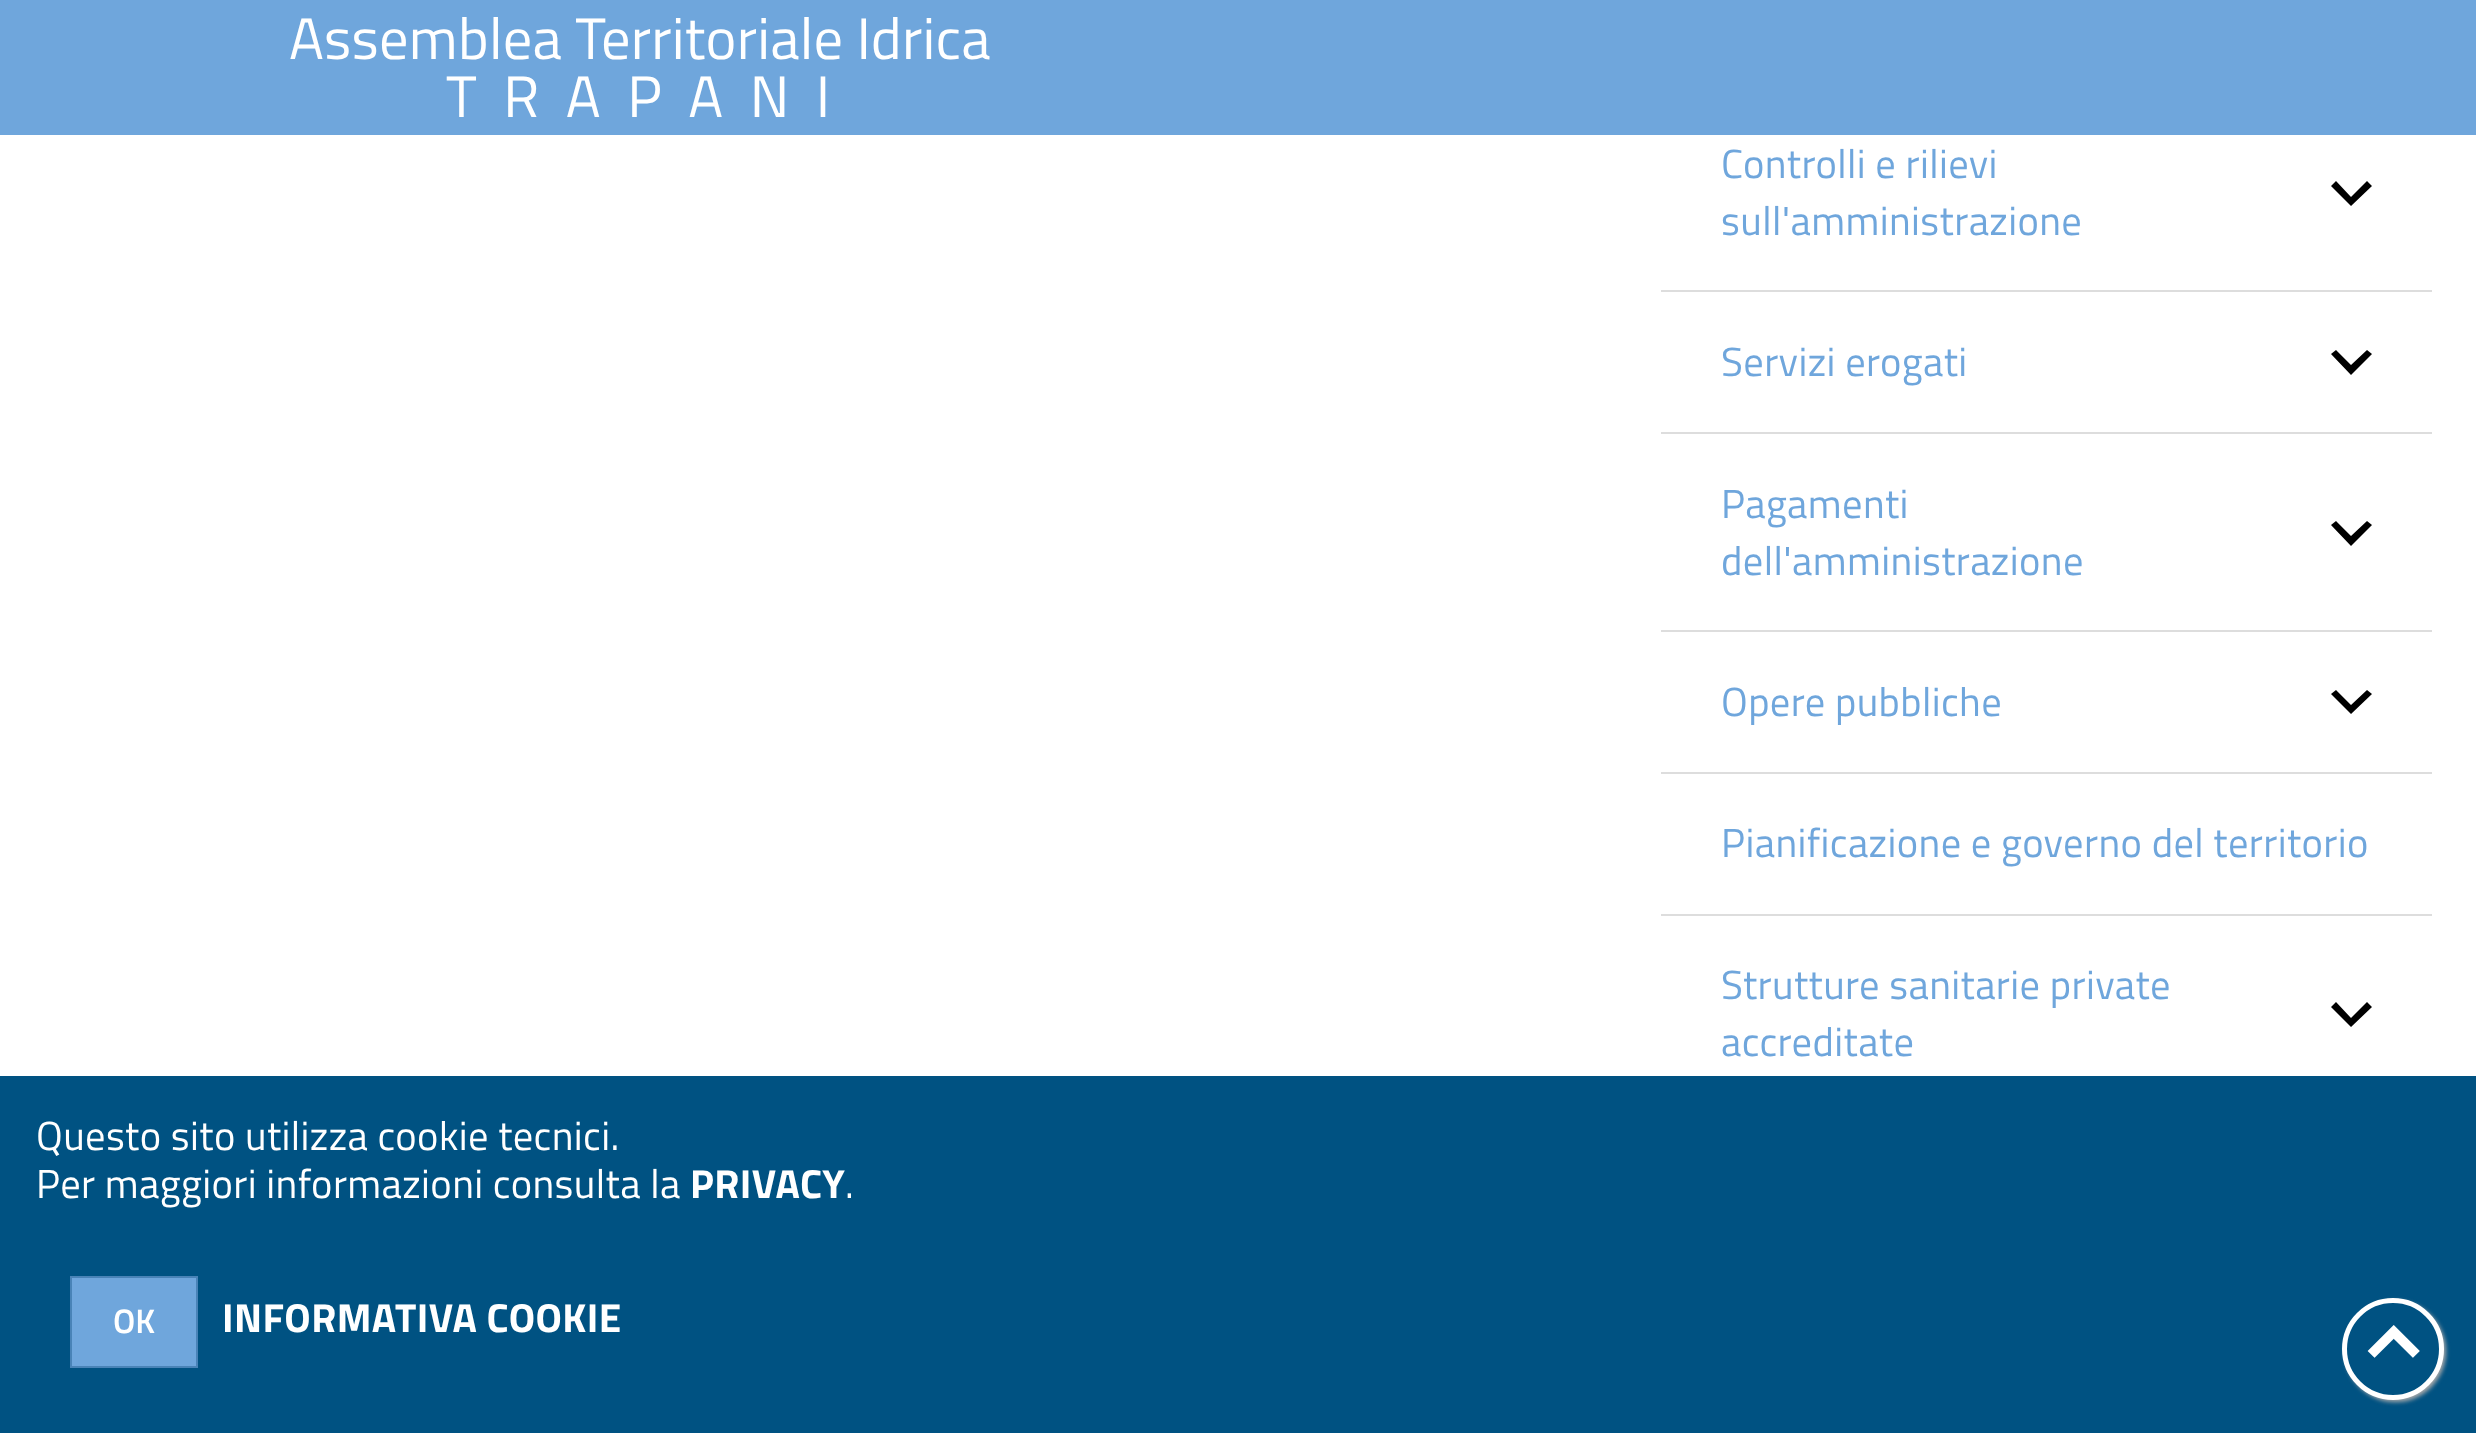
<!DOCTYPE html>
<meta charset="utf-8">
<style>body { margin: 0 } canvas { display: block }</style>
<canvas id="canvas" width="2476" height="1433"></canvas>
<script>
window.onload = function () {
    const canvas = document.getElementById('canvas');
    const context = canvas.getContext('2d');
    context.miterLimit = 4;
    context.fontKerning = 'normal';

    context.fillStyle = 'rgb(255, 255, 255)';
    context.fillRect(0, 0, 2476, 1433);
    context.fillStyle = 'rgb(111, 166, 220)';
    context.fillRect(0, 0, 2476, 135);
    context.fillStyle = 'rgb(0, 0, 0)';
    context.beginPath();
    context.moveTo(2336, 181);
    context.lineTo(2331, 186);
    context.lineTo(2351, 206);
    context.lineTo(2372, 186);
    context.lineTo(2367, 181);
    context.lineTo(2351, 197);
    context.closePath();
    context.fill();
    context.fillStyle = 'rgb(221, 221, 221)';
    context.fillRect(1661, 290, 771, 2);
    context.fillStyle = 'rgb(0, 0, 0)';
    context.beginPath();
    context.moveTo(2336, 350);
    context.lineTo(2331, 354);
    context.lineTo(2351, 375);
    context.lineTo(2372, 354);
    context.lineTo(2367, 350);
    context.lineTo(2351, 365);
    context.closePath();
    context.fill();
    context.fillStyle = 'rgb(221, 221, 221)';
    context.fillRect(1661, 432, 771, 2);
    context.fillStyle = 'rgb(0, 0, 0)';
    context.beginPath();
    context.moveTo(2336, 521);
    context.lineTo(2331, 525);
    context.lineTo(2351, 546);
    context.lineTo(2372, 525);
    context.lineTo(2367, 521);
    context.lineTo(2351, 536);
    context.closePath();
    context.fill();
    context.fillStyle = 'rgb(221, 221, 221)';
    context.fillRect(1661, 630, 771, 2);
    context.fillStyle = 'rgb(0, 0, 0)';
    context.beginPath();
    context.moveTo(2336, 690);
    context.lineTo(2331, 694);
    context.lineTo(2351, 714);
    context.lineTo(2372, 694);
    context.lineTo(2367, 690);
    context.lineTo(2351, 705);
    context.closePath();
    context.fill();
    context.fillStyle = 'rgb(221, 221, 221)';
    context.fillRect(1661, 772, 771, 2);
    context.fillRect(1661, 914, 771, 2);
    context.fillStyle = 'rgb(0, 0, 0)';
    context.beginPath();
    context.moveTo(2336, 1002);
    context.lineTo(2331, 1007);
    context.lineTo(2351, 1027);
    context.lineTo(2372, 1007);
    context.lineTo(2367, 1002);
    context.lineTo(2351, 1018);
    context.closePath();
    context.fill();
    context.fillStyle = 'rgb(0, 82, 130)';
    context.fillRect(0, 1076, 2476, 357);
    context.fillStyle = 'rgb(111, 166, 220)';
    context.beginPath();
    context.rect(71, 1277, 126, 90);
    context.fill();
    context.strokeStyle = 'rgb(73, 131, 183)';
    context.lineWidth = 2;
    context.stroke();
    context.fillStyle = 'rgb(170, 170, 170)';
    context.filter = 'blur(2px)';
    context.beginPath();
    context.roundRect(2345, 1301, 101, 101, 50.5);
    context.fill();
    context.filter = 'none';
    context.fillStyle = 'rgb(0, 82, 130)';
    context.beginPath();
    context.arc(2393, 1349, 48.5, 0, 2 * Math.PI);
    context.fill();
    context.strokeStyle = 'rgb(255, 255, 255)';
    context.lineWidth = 5;
    context.stroke();
    context.letterSpacing = '0.25px';
    context.font = '58.5px Titillium Web';
    context.fillStyle = 'rgb(255, 255, 255)';
    context.fillText('Assemblea Territoriale Idrica', 289, 59);
    context.fillText('T  R  A  P  A  N  I', 446, 117);
    context.letterSpacing = '0.4px';
    context.font = '40.5px Titillium Web';
    context.fillStyle = 'rgb(111, 166, 220)';
    context.fillText('Controlli e rilievi', 1721, 178);
    context.fillText('sull\'amministrazione', 1721, 235);
    context.fillText('Servizi erogati', 1721, 376);
    context.fillText('Pagamenti', 1721, 518);
    context.fillText('dell\'amministrazione', 1721, 575);
    context.fillText('Opere pubbliche', 1721, 716);
    context.fillText('Pianificazione e governo del territorio', 1721, 857);
    context.fillText('Strutture sanitarie private', 1721, 999);
    context.fillText('accreditate', 1721, 1056);
    context.fillStyle = 'rgb(255, 255, 255)';
    context.fillText('Questo sito utilizza cookie tecnici.', 36, 1150);
    context.fillText('Per maggiori informazioni consulta la', 36, 1198);
    context.font = 'bold 40.5px Titillium Web';
    context.fillText('PRIVACY', 690, 1198);
    context.font = '40.5px Titillium Web';
    context.fillText('.', 845, 1198);
    context.letterSpacing = '0px';
    context.font = '600 34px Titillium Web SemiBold';
    context.fillText('OK', 113, 1333);
    context.letterSpacing = '0.4px';
    context.font = 'bold 40.5px Titillium Web';
    context.fillText('INFORMATIVA COOKIE', 222, 1332);
    context.letterSpacing = '0px';
    context.font = 'bold 50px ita';
    context.fillText('⏷', 2368, 1364);
};
</script>
